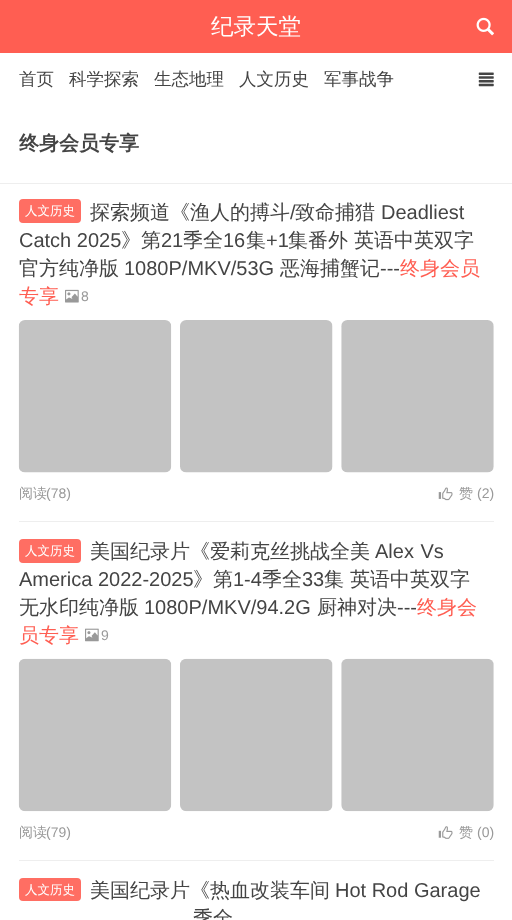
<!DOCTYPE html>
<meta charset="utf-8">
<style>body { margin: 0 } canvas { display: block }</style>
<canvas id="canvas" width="512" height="920"></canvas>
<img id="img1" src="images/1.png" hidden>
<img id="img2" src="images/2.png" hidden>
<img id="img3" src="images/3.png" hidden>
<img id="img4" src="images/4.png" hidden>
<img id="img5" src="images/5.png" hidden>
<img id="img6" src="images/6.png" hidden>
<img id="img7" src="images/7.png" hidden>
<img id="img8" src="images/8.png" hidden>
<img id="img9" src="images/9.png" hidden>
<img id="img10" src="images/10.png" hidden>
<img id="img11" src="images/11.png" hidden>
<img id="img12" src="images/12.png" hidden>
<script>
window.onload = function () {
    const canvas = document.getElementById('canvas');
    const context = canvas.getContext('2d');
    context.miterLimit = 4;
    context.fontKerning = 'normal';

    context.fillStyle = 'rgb(255, 255, 255)';
    context.fillRect(0, 0, 512, 920);
    context.fillStyle = 'rgb(255, 94, 82)';
    context.fillRect(0, 0, 512, 53);
    context.drawImage(document.getElementById('img1'), 476, 17, 18, 19);
    context.drawImage(document.getElementById('img2'), 478, 72, 16, 15);
    context.fillStyle = 'rgb(238, 238, 238)';
    context.fillRect(0, 183, 512, 1);
    context.fillRect(19, 521, 475, 1);
    context.fillStyle = 'rgb(255, 110, 99)';
    context.beginPath();
    context.roundRect(19, 199, 62, 24, 4);
    context.fill();
    context.drawImage(document.getElementById('img3'), 65, 289, 14, 14);
    context.drawImage(document.getElementById('img4'), 18, 320, 154, 153);
    context.drawImage(document.getElementById('img5'), 180, 320, 153, 153);
    context.drawImage(document.getElementById('img6'), 341, 320, 153, 153);
    context.drawImage(document.getElementById('img7'), 438, 487, 15, 14);
    context.fillStyle = 'rgb(238, 238, 238)';
    context.fillRect(19, 860, 475, 1);
    context.fillStyle = 'rgb(255, 110, 99)';
    context.beginPath();
    context.roundRect(19, 539, 62, 24, 4);
    context.fill();
    context.drawImage(document.getElementById('img8'), 85, 628, 14, 14);
    context.drawImage(document.getElementById('img9'), 18, 658, 154, 154);
    context.drawImage(document.getElementById('img10'), 180, 658, 153, 154);
    context.drawImage(document.getElementById('img11'), 341, 658, 153, 154);
    context.drawImage(document.getElementById('img12'), 438, 826, 15, 13);
    context.beginPath();
    context.roundRect(19, 878, 62, 23, 4);
    context.fill();
    context.font = '500 22.5px WenQuanYi Zen Hei';
    context.fillStyle = 'rgb(255, 255, 255)';
    context.fillText('纪录天堂', 211, 34);
    context.font = '500 17.5px WenQuanYi Zen Hei';
    context.fillStyle = 'rgb(68, 68, 68)';
    context.fillText('首页', 19, 85);
    context.fillText('科学探索', 69, 85);
    context.fillText('生态地理', 154, 85);
    context.fillText('人文历史', 239, 85);
    context.fillText('军事战争', 324, 85);
    context.font = 'bold 20px WenQuanYi Zen Hei';
    context.fillText('终身会员专享', 19, 150);
    context.font = '500 12.5px WenQuanYi Zen Hei';
    context.fillStyle = 'rgb(255, 255, 255)';
    context.fillText('人文历史', 25, 215);
    context.font = '500 20px WenQuanYi Zen Hei';
    context.fillStyle = 'rgb(68, 68, 68)';
    context.fillText('探索频道《渔人的搏斗', 90, 219);
    context.font = '20px Liberation Sans';
    context.fillText('/', 290, 219);
    context.font = '500 20px WenQuanYi Zen Hei';
    context.fillText('致命捕猎', 295, 219);
    context.font = '20px Liberation Sans';
    context.fillText('Deadliest', 381, 219);
    context.fillText('Catch 2025', 19, 247);
    context.font = '500 20px WenQuanYi Zen Hei';
    context.fillText('》第', 121, 247);
    context.font = '20px Liberation Sans';
    context.fillText('21', 161, 247);
    context.font = '500 20px WenQuanYi Zen Hei';
    context.fillText('季全', 183, 247);
    context.font = '20px Liberation Sans';
    context.fillText('16', 223, 247);
    context.font = '500 20px WenQuanYi Zen Hei';
    context.fillText('集', 246, 247);
    context.font = '20px Liberation Sans';
    context.fillText('+1', 266, 247);
    context.font = '500 20px WenQuanYi Zen Hei';
    context.fillText('集番外', 288, 247);
    context.fillText('英语中英双字', 354, 247);
    context.fillText('官方纯净版', 19, 275);
    context.font = '20px Liberation Sans';
    context.fillText('1080P/MKV/53G', 124, 275);
    context.font = '500 20px WenQuanYi Zen Hei';
    context.fillText('恶海捕蟹记', 280, 275);
    context.font = '20px Liberation Sans';
    context.fillText('---', 380, 275);
    context.font = '500 20px WenQuanYi Zen Hei';
    context.fillStyle = 'rgb(255, 94, 82)';
    context.fillText('终身会员', 400, 275);
    context.fillText('专享', 19, 303);
    context.font = '14px Liberation Sans';
    context.fillStyle = 'rgb(153, 153, 153)';
    context.fillText('8', 81, 301);
    context.font = '500 14px WenQuanYi Zen Hei';
    context.fillText('阅读', 19, 498);
    context.font = '14px Liberation Sans';
    context.fillText('(78)', 46, 498);
    context.font = '500 14px WenQuanYi Zen Hei';
    context.fillText('赞', 459, 498);
    context.font = '14px Liberation Sans';
    context.fillText('(2)', 477, 498);
    context.font = '500 12.5px WenQuanYi Zen Hei';
    context.fillStyle = 'rgb(255, 255, 255)';
    context.fillText('人文历史', 25, 555);
    context.font = '500 20px WenQuanYi Zen Hei';
    context.fillStyle = 'rgb(68, 68, 68)';
    context.fillText('美国纪录片《爱莉克丝挑战全美', 90, 558);
    context.wordSpacing = '1px';
    context.font = '20px Liberation Sans';
    context.fillText('Alex Vs', 375, 558);
    context.wordSpacing = '0px';
    context.fillText('America 2022-2025', 19, 586);
    context.font = '500 20px WenQuanYi Zen Hei';
    context.fillText('》第', 193, 586);
    context.font = '20px Liberation Sans';
    context.fillText('1-4', 233, 586);
    context.font = '500 20px WenQuanYi Zen Hei';
    context.fillText('季全', 262, 586);
    context.font = '20px Liberation Sans';
    context.fillText('33', 302, 586);
    context.font = '500 20px WenQuanYi Zen Hei';
    context.fillText('集', 324, 586);
    context.fillText('英语中英双字', 350, 586);
    context.fillText('无水印纯净版', 19, 614);
    context.font = '20px Liberation Sans';
    context.fillText('1080P/MKV/94.2G', 144, 614);
    context.font = '500 20px WenQuanYi Zen Hei';
    context.fillText('厨神对决', 317, 614);
    context.font = '20px Liberation Sans';
    context.fillText('---', 397, 614);
    context.font = '500 20px WenQuanYi Zen Hei';
    context.fillStyle = 'rgb(255, 94, 82)';
    context.fillText('终身会', 417, 614);
    context.fillText('员专享', 19, 642);
    context.font = '14px Liberation Sans';
    context.fillStyle = 'rgb(153, 153, 153)';
    context.fillText('9', 101, 640);
    context.font = '500 14px WenQuanYi Zen Hei';
    context.fillText('阅读', 19, 837);
    context.font = '14px Liberation Sans';
    context.fillText('(79)', 46, 837);
    context.font = '500 14px WenQuanYi Zen Hei';
    context.fillText('赞', 459, 837);
    context.font = '14px Liberation Sans';
    context.fillText('(0)', 477, 837);
    context.font = '500 12.5px WenQuanYi Zen Hei';
    context.fillStyle = 'rgb(255, 255, 255)';
    context.fillText('人文历史', 25, 894);
    context.font = '500 20px WenQuanYi Zen Hei';
    context.fillStyle = 'rgb(68, 68, 68)';
    context.fillText('美国纪录片《热血改装车间', 90, 897);
    context.font = '20px Liberation Sans';
    context.fillText('Hot Rod Garage', 335, 897);
    context.font = '500 20px WenQuanYi Zen Hei';
    context.fillText('季全', 193, 925);
};
</script>
